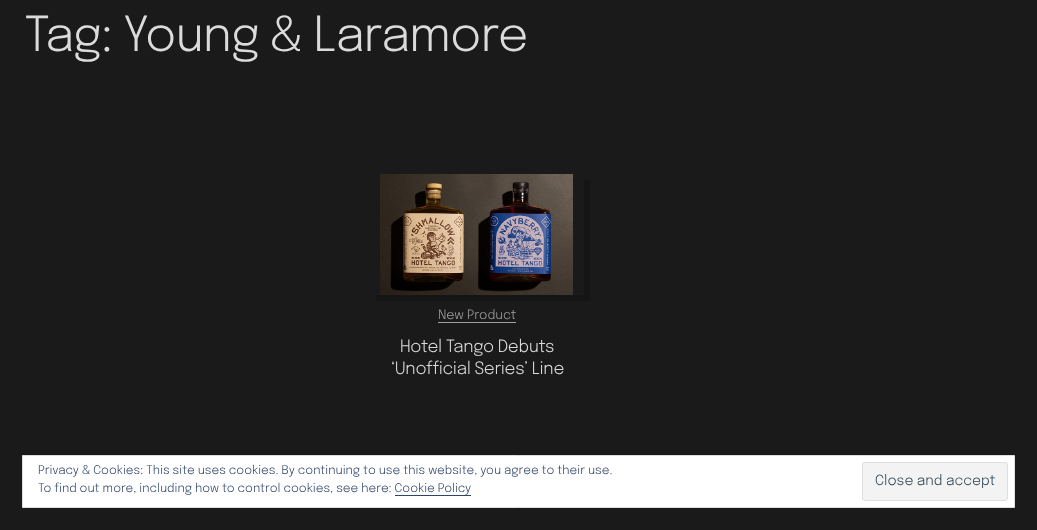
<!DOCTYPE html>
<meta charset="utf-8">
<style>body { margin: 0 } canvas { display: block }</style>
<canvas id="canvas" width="1037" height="530"></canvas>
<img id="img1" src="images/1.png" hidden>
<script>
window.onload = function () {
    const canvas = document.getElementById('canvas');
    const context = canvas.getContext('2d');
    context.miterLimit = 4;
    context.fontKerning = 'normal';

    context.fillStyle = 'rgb(26, 26, 26)';
    context.fillRect(0, 0, 1037, 530);
    context.fillStyle = 'rgb(21, 21, 21)';
    context.beginPath();
    context.moveTo(376, 295);
    context.lineTo(376, 301);
    context.lineTo(590, 301);
    context.lineTo(590, 180);
    context.lineTo(584, 180);
    context.lineTo(584, 295);
    context.closePath();
    context.fill();
    context.drawImage(document.getElementById('img1'), 380, 174, 193, 121);
    context.fillStyle = 'rgb(162, 162, 162)';
    context.fillRect(438, 322, 78, 1);
    context.fillStyle = 'rgb(255, 255, 255)';
    context.beginPath();
    context.rect(22.5, 455.5, 992, 52);
    context.fill();
    context.strokeStyle = 'rgb(222, 222, 222)';
    context.stroke();
    context.fillStyle = 'rgb(243, 243, 243)';
    context.beginPath();
    context.roundRect(862.5, 462.5, 145, 38, 2.5);
    context.fill();
    context.stroke();
    context.fillStyle = 'rgb(46, 68, 103)';
    context.fillRect(395, 495, 76, 1);
    context.letterSpacing = '-1px';
    context.font = '300 48px Epilogue';
    context.fillStyle = 'rgb(219, 219, 219)';
    context.fillText('Tag: Young & Laramore', 24, 51);
    context.letterSpacing = '0px';
    context.font = '300 12.75px Epilogue';
    context.fillStyle = 'rgb(162, 162, 162)';
    context.fillText('New Product', 438, 319);
    context.letterSpacing = '-0.3px';
    context.font = '300 17px Epilogue';
    context.fillStyle = 'rgb(219, 219, 219)';
    context.fillText('Hotel Tango Debuts', 400, 352);
    context.fillText('‘Unofficial Series’ Line', 391, 374);
    context.letterSpacing = '0px';
    context.font = '300 12px Epilogue';
    context.fillStyle = 'rgb(46, 68, 103)';
    context.fillText('Privacy & Cookies: This site uses cookies. By continuing to use this website, you agree to their use.', 38, 474);
    context.fillText('To find out more, including how to control cookies, see here: Cookie Policy', 38, 492);
    context.font = '300 14px Epilogue';
    context.fillStyle = 'rgb(46, 68, 83)';
    context.fillText('Close and accept', 875, 485);
};
</script>
